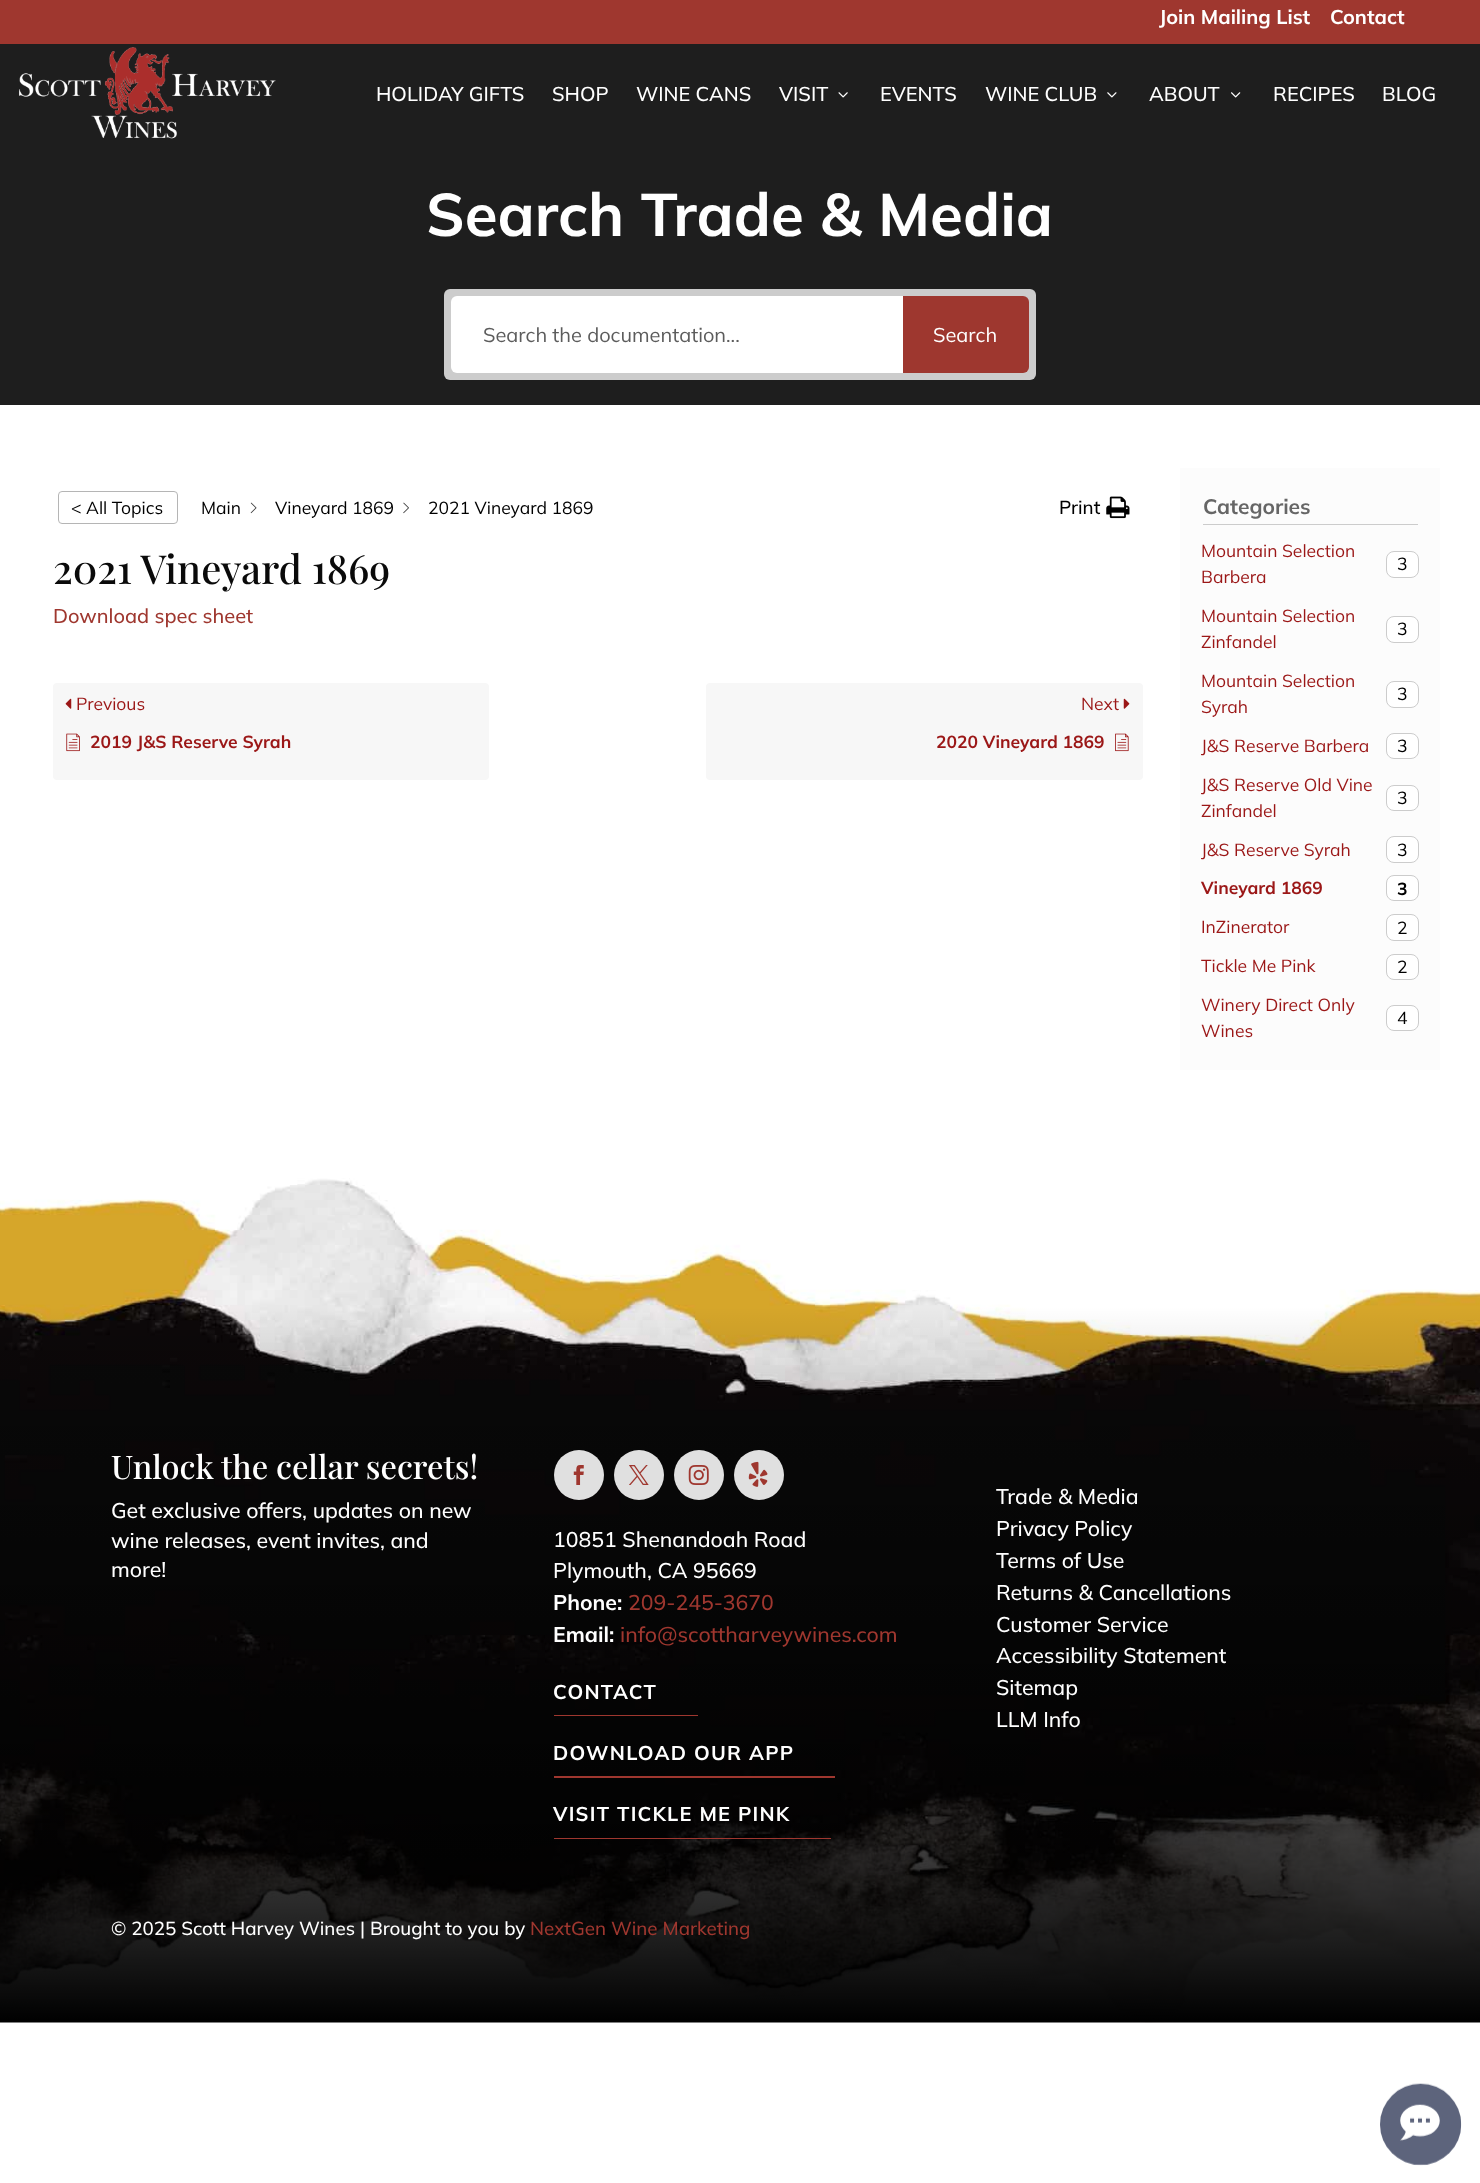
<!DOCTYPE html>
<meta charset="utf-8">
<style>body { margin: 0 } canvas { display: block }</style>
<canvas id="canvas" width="1480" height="2183"></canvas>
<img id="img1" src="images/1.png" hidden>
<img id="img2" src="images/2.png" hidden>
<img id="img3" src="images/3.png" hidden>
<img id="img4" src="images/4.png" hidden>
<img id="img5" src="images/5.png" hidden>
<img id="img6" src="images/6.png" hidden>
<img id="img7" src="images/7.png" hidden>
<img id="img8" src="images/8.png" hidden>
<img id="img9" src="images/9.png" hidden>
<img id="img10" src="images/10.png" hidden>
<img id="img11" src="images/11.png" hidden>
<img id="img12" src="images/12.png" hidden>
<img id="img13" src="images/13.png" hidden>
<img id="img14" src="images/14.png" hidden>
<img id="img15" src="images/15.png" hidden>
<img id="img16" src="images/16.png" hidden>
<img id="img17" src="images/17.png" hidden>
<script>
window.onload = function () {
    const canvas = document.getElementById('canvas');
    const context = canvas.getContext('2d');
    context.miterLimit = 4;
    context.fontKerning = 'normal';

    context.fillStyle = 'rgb(255, 255, 255)';
    context.fillRect(0, 0, 1480, 2183);
    context.fillStyle = 'rgb(159, 55, 47)';
    context.fillRect(0, 0, 1480, 44);
    context.fillStyle = 'rgb(30, 30, 30)';
    context.fillRect(0, 44, 1480, 361);
    context.drawImage(document.getElementById('img1'), 19, 47, 257, 92);
    context.drawImage(document.getElementById('img2'), 838, 92, 10, 6);
    context.drawImage(document.getElementById('img3'), 1107, 92, 10, 6);
    context.drawImage(document.getElementById('img4'), 1231, 92, 10, 6);
    context.fillStyle = 'rgb(204, 204, 204)';
    context.beginPath();
    context.roundRect(444, 289, 592, 91, 6);
    context.fill();
    context.fillStyle = 'rgb(255, 255, 255)';
    context.beginPath();
    context.roundRect(451, 296, 452, 77, [6, 0, 0, 6]);
    context.fill();
    context.fillStyle = 'rgb(158, 55, 47)';
    context.beginPath();
    context.roundRect(903, 296, 126, 77, [0, 6, 6, 0]);
    context.fill();
    context.beginPath();
    context.roundRect(58.5, 491.5, 119, 32, 3.5);
    context.strokeStyle = 'rgb(181, 181, 181)';
    context.stroke();
    context.drawImage(document.getElementById('img5'), 250, 502, 7, 12);
    context.drawImage(document.getElementById('img6'), 403, 502, 6, 12);
    context.drawImage(document.getElementById('img7'), 1106, 496, 24, 23);
    context.fillStyle = 'rgb(247, 247, 247)';
    context.beginPath();
    context.roundRect(53, 683, 436, 97, 4);
    context.fill();
    context.drawImage(document.getElementById('img8'), 65, 698, 7, 11);
    context.drawImage(document.getElementById('img9'), 66, 733, 14, 19);
    context.beginPath();
    context.roundRect(706, 683, 437, 97, 4);
    context.fill();
    context.drawImage(document.getElementById('img10'), 1123, 698, 7, 11);
    context.drawImage(document.getElementById('img11'), 1115, 733, 14, 19);
    context.fillStyle = 'rgb(252, 252, 252)';
    context.fillRect(1180, 468, 260, 602);
    context.fillStyle = 'rgb(204, 204, 204)';
    context.fillRect(1203, 524, 215, 1);
    context.fillStyle = 'rgb(255, 255, 255)';
    context.beginPath();
    context.roundRect(1386.5, 551.5, 32, 26, 7.5);
    context.fill();
    context.strokeStyle = 'rgb(204, 204, 204)';
    context.stroke();
    context.beginPath();
    context.roundRect(1386.5, 616.5, 32, 26, 7.5);
    context.fill();
    context.stroke();
    context.beginPath();
    context.roundRect(1386.5, 681.5, 32, 26, 7.5);
    context.fill();
    context.stroke();
    context.beginPath();
    context.roundRect(1386.5, 733.5, 32, 25, 7.5);
    context.fill();
    context.stroke();
    context.beginPath();
    context.roundRect(1386.5, 785.5, 32, 25, 7.5);
    context.fill();
    context.stroke();
    context.beginPath();
    context.roundRect(1386.5, 836.5, 32, 26, 7.5);
    context.fill();
    context.stroke();
    context.beginPath();
    context.roundRect(1386.5, 875.5, 32, 25, 7.5);
    context.fill();
    context.stroke();
    context.beginPath();
    context.roundRect(1386.5, 914.5, 32, 26, 7.5);
    context.fill();
    context.stroke();
    context.beginPath();
    context.roundRect(1386.5, 954.5, 32, 25, 7.5);
    context.fill();
    context.stroke();
    context.beginPath();
    context.roundRect(1386.5, 1005.5, 32, 25, 7.5);
    context.fill();
    context.stroke();
    context.drawImage(document.getElementById('img12'), 0, 1178, 1480, 845);
    context.fillStyle = 'rgb(224, 224, 224)';
    context.beginPath();
    context.arc(579, 1475, 25, 0, 2 * Math.PI);
    context.fill();
    context.drawImage(document.getElementById('img13'), 573, 1465, 11, 20);
    context.beginPath();
    context.arc(639, 1475, 25, 0, 2 * Math.PI);
    context.fill();
    context.drawImage(document.getElementById('img14'), 629, 1465, 20, 20);
    context.beginPath();
    context.arc(699, 1475, 25, 0, 2 * Math.PI);
    context.fill();
    context.drawImage(document.getElementById('img15'), 688, 1465, 21, 20);
    context.beginPath();
    context.arc(759, 1475, 25, 0, 2 * Math.PI);
    context.fill();
    context.drawImage(document.getElementById('img16'), 748, 1461, 20, 26);
    context.fillStyle = 'rgb(159, 55, 47)';
    context.beginPath();
    context.moveTo(554, 1715);
    context.lineTo(554, 1716);
    context.lineTo(698, 1716);
    context.lineTo(698, 1670);
    context.lineTo(698, 1715);
    context.closePath();
    context.fill();
    context.fillRect(554, 1776, 281, 2);
    context.fillRect(554, 1838, 277, 1);
    context.drawImage(document.getElementById('img17'), 1380, 2083, 82, 83);
    context.font = 'bold 20px Mulish';
    context.fillStyle = 'rgb(255, 255, 255)';
    context.fillText('Join Mailing List', 1159, 24);
    context.fillText('Contact', 1330, 24);
    context.font = '500 20px Mulish';
    context.fillText('HOLIDAY GIFTS', 376, 101);
    context.fillText('SHOP', 552, 101);
    context.fillText('WINE CANS', 636, 101);
    context.fillText('VISIT', 779, 101);
    context.fillText('EVENTS', 880, 101);
    context.fillText('WINE CLUB', 985, 101);
    context.fillText('ABOUT', 1149, 101);
    context.fillText('RECIPES', 1273, 101);
    context.fillText('BLOG', 1382, 101);
    context.font = 'bold 60px Mulish';
    context.fillText('Search Trade & Media', 426, 236);
    context.font = '20px Mulish';
    context.fillStyle = 'rgb(92, 92, 92)';
    context.fillText('Search the documentation...', 483, 342);
    context.fillStyle = 'rgb(255, 255, 255)';
    context.fillText('Search', 933, 342);
    context.font = '17.5px Mulish';
    context.fillStyle = 'rgb(0, 0, 0)';
    context.fillText('< All Topics', 71, 514);
    context.fillText('Main', 201, 514);
    context.fillText('Vineyard 1869', 275, 514);
    context.fillText('2021 Vineyard 1869', 428, 514);
    context.font = '500 18.75px Mulish';
    context.fillText('Print', 1059, 514);
    context.font = '500 40px Playfair Display';
    context.fillStyle = 'rgb(10, 10, 10)';
    context.fillText('2021 Vineyard 1869', 53, 584);
    context.font = '500 20px Mulish';
    context.fillStyle = 'rgb(159, 55, 47)';
    context.fillText('Download spec sheet', 53, 623);
    context.font = '17.5px Mulish';
    context.fillStyle = 'rgb(155, 23, 23)';
    context.fillText('Previous', 76, 710);
    context.font = 'bold 17.5px Mulish';
    context.fillText('2019 J&S Reserve Syrah', 90, 748);
    context.font = '17.5px Mulish';
    context.fillText('Next', 1081, 710);
    context.font = 'bold 17.5px Mulish';
    context.fillText('2020 Vineyard 1869', 936, 748);
    context.font = 'bold 21px Mulish';
    context.fillStyle = 'rgb(102, 102, 102)';
    context.fillText('Categories', 1203, 514);
    context.font = '17.5px Mulish';
    context.fillStyle = 'rgb(155, 23, 23)';
    context.fillText('Mountain Selection', 1201, 557);
    context.fillText('Barbera', 1201, 583);
    context.fillStyle = 'rgb(0, 0, 0)';
    context.fillText('3', 1397, 570);
    context.fillStyle = 'rgb(155, 23, 23)';
    context.fillText('Mountain Selection', 1201, 622);
    context.fillText('Zinfandel', 1201, 648);
    context.fillStyle = 'rgb(0, 0, 0)';
    context.fillText('3', 1397, 635);
    context.fillStyle = 'rgb(155, 23, 23)';
    context.fillText('Mountain Selection', 1201, 687);
    context.fillText('Syrah', 1201, 713);
    context.fillStyle = 'rgb(0, 0, 0)';
    context.fillText('3', 1397, 700);
    context.fillStyle = 'rgb(155, 23, 23)';
    context.fillText('J&S Reserve Barbera', 1201, 752);
    context.fillStyle = 'rgb(0, 0, 0)';
    context.fillText('3', 1397, 752);
    context.fillStyle = 'rgb(155, 23, 23)';
    context.fillText('J&S Reserve Old Vine', 1201, 791);
    context.fillText('Zinfandel', 1201, 817);
    context.fillStyle = 'rgb(0, 0, 0)';
    context.fillText('3', 1397, 804);
    context.fillStyle = 'rgb(155, 23, 23)';
    context.fillText('J&S Reserve Syrah', 1201, 856);
    context.fillStyle = 'rgb(0, 0, 0)';
    context.fillText('3', 1397, 856);
    context.font = 'bold 17.5px Mulish';
    context.fillStyle = 'rgb(155, 23, 23)';
    context.fillText('Vineyard 1869', 1201, 894);
    context.fillStyle = 'rgb(0, 0, 0)';
    context.fillText('3', 1397, 895);
    context.font = '17.5px Mulish';
    context.fillStyle = 'rgb(155, 23, 23)';
    context.fillText('InZinerator', 1201, 933);
    context.fillStyle = 'rgb(0, 0, 0)';
    context.fillText('2', 1397, 934);
    context.fillStyle = 'rgb(155, 23, 23)';
    context.fillText('Tickle Me Pink', 1201, 972);
    context.fillStyle = 'rgb(0, 0, 0)';
    context.fillText('2', 1397, 973);
    context.fillStyle = 'rgb(155, 23, 23)';
    context.fillText('Winery Direct Only', 1201, 1011);
    context.fillText('Wines', 1201, 1037);
    context.fillStyle = 'rgb(0, 0, 0)';
    context.fillText('4', 1397, 1024);
    context.font = '500 32.5px Playfair Display';
    context.fillStyle = 'rgb(255, 255, 255)';
    context.fillText('Unlock the cellar secrets!', 111, 1479);
    context.font = '500 21.25px Mulish';
    context.fillText('Get exclusive offers, updates on new', 111, 1518);
    context.fillText('wine releases, event invites, and', 111, 1548);
    context.fillText('more!', 111, 1577);
    context.fillText('10851 Shenandoah Road', 553, 1547);
    context.fillText('Plymouth, CA 95669', 553, 1578);
    context.font = 'bold 21.25px Mulish';
    context.fillText('Phone:', 553, 1610);
    context.font = '500 21.25px Mulish';
    context.fillStyle = 'rgb(159, 55, 47)';
    context.fillText('209-245-3670', 628, 1610);
    context.font = 'bold 21.25px Mulish';
    context.fillStyle = 'rgb(255, 255, 255)';
    context.fillText('Email:', 553, 1642);
    context.font = '500 21.25px Mulish';
    context.fillStyle = 'rgb(159, 55, 47)';
    context.fillText('info@scottharveywines.com', 620, 1642);
    context.letterSpacing = '1.25px';
    context.font = 'bold 20px Mulish';
    context.fillStyle = 'rgb(255, 255, 255)';
    context.fillText('CONTACT', 553, 1699);
    context.fillText('DOWNLOAD OUR APP', 553, 1760);
    context.fillText('VISIT TICKLE ME PINK', 553, 1821);
    context.letterSpacing = '0px';
    context.font = '500 21.25px Mulish';
    context.fillText('Trade & Media', 996, 1504);
    context.fillText('Privacy Policy', 996, 1536);
    context.fillText('Terms of Use', 996, 1568);
    context.fillText('Returns & Cancellations', 996, 1600);
    context.fillText('Customer Service', 996, 1632);
    context.fillText('Accessibility Statement', 996, 1663);
    context.fillText('Sitemap', 996, 1695);
    context.fillText('LLM Info', 996, 1727);
    context.font = '500 18.75px Mulish';
    context.fillText('© 2025 Scott Harvey Wines | Brought to you by', 111, 1935);
    context.fillStyle = 'rgb(159, 55, 47)';
    context.fillText('NextGen Wine Marketing', 530, 1935);
};
</script>
